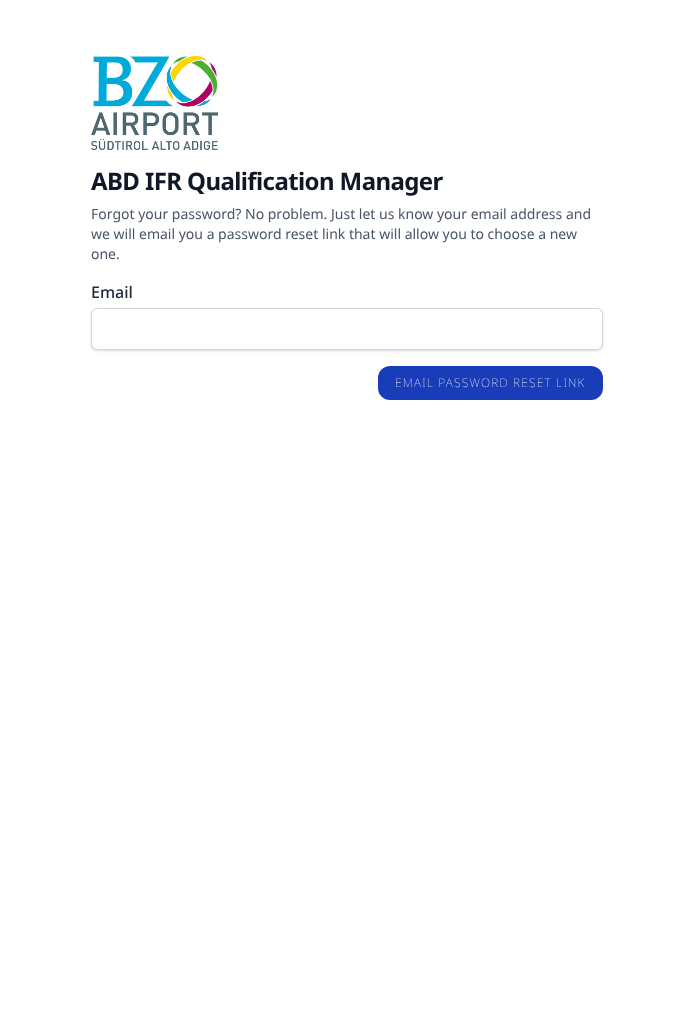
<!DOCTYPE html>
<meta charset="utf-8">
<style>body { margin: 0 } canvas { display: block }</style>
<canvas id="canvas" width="693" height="1013"></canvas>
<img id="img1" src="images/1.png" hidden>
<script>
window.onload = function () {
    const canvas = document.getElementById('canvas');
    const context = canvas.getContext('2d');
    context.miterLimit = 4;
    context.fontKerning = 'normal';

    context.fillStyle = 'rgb(255, 255, 255)';
    context.fillRect(0, 0, 693, 1013);
    context.drawImage(document.getElementById('img1'), 91, 56, 127, 94);
    context.fillStyle = 'rgba(0, 0, 0, 0.1)';
    context.filter = 'blur(1px)';
    context.beginPath();
    context.roundRect(92, 310, 510, 40, 5);
    context.fill();
    context.filter = 'none';
    context.filter = 'blur(1.5px)';
    context.beginPath();
    context.roundRect(91, 309, 512, 42, 6);
    context.fill();
    context.filter = 'none';
    context.fillStyle = 'rgb(255, 255, 255)';
    context.beginPath();
    context.roundRect(91.5, 308.5, 511, 41, 5.5);
    context.fill();
    context.strokeStyle = 'rgb(209, 213, 220)';
    context.stroke();
    context.fillStyle = 'rgb(25, 60, 184)';
    context.beginPath();
    context.roundRect(378, 366, 225, 34, 12);
    context.fill();
    context.letterSpacing = '-0.6px';
    context.font = 'bold 24px Noto Sans';
    context.fillStyle = 'rgb(16, 24, 40)';
    context.fillText('ABD IFR Qualification Manager', 91, 190);
    context.letterSpacing = '0px';
    context.font = '14px Noto Sans';
    context.fillStyle = 'rgb(74, 85, 101)';
    context.fillText('Forgot your password? No problem. Just let us know your email address and', 91, 219);
    context.fillText('we will email you a password reset link that will allow you to choose a new', 91, 239);
    context.fillText('one.', 91, 259);
    context.font = '500 16px Noto Sans';
    context.fillStyle = 'rgb(30, 41, 57)';
    context.fillText('Email', 91, 298);
    context.letterSpacing = '1.2px';
    context.font = '100 12px Noto Sans';
    context.fillStyle = 'rgb(255, 255, 255)';
    context.fillText('EMAIL PASSWORD RESET LINK', 395, 387);
};
</script>
